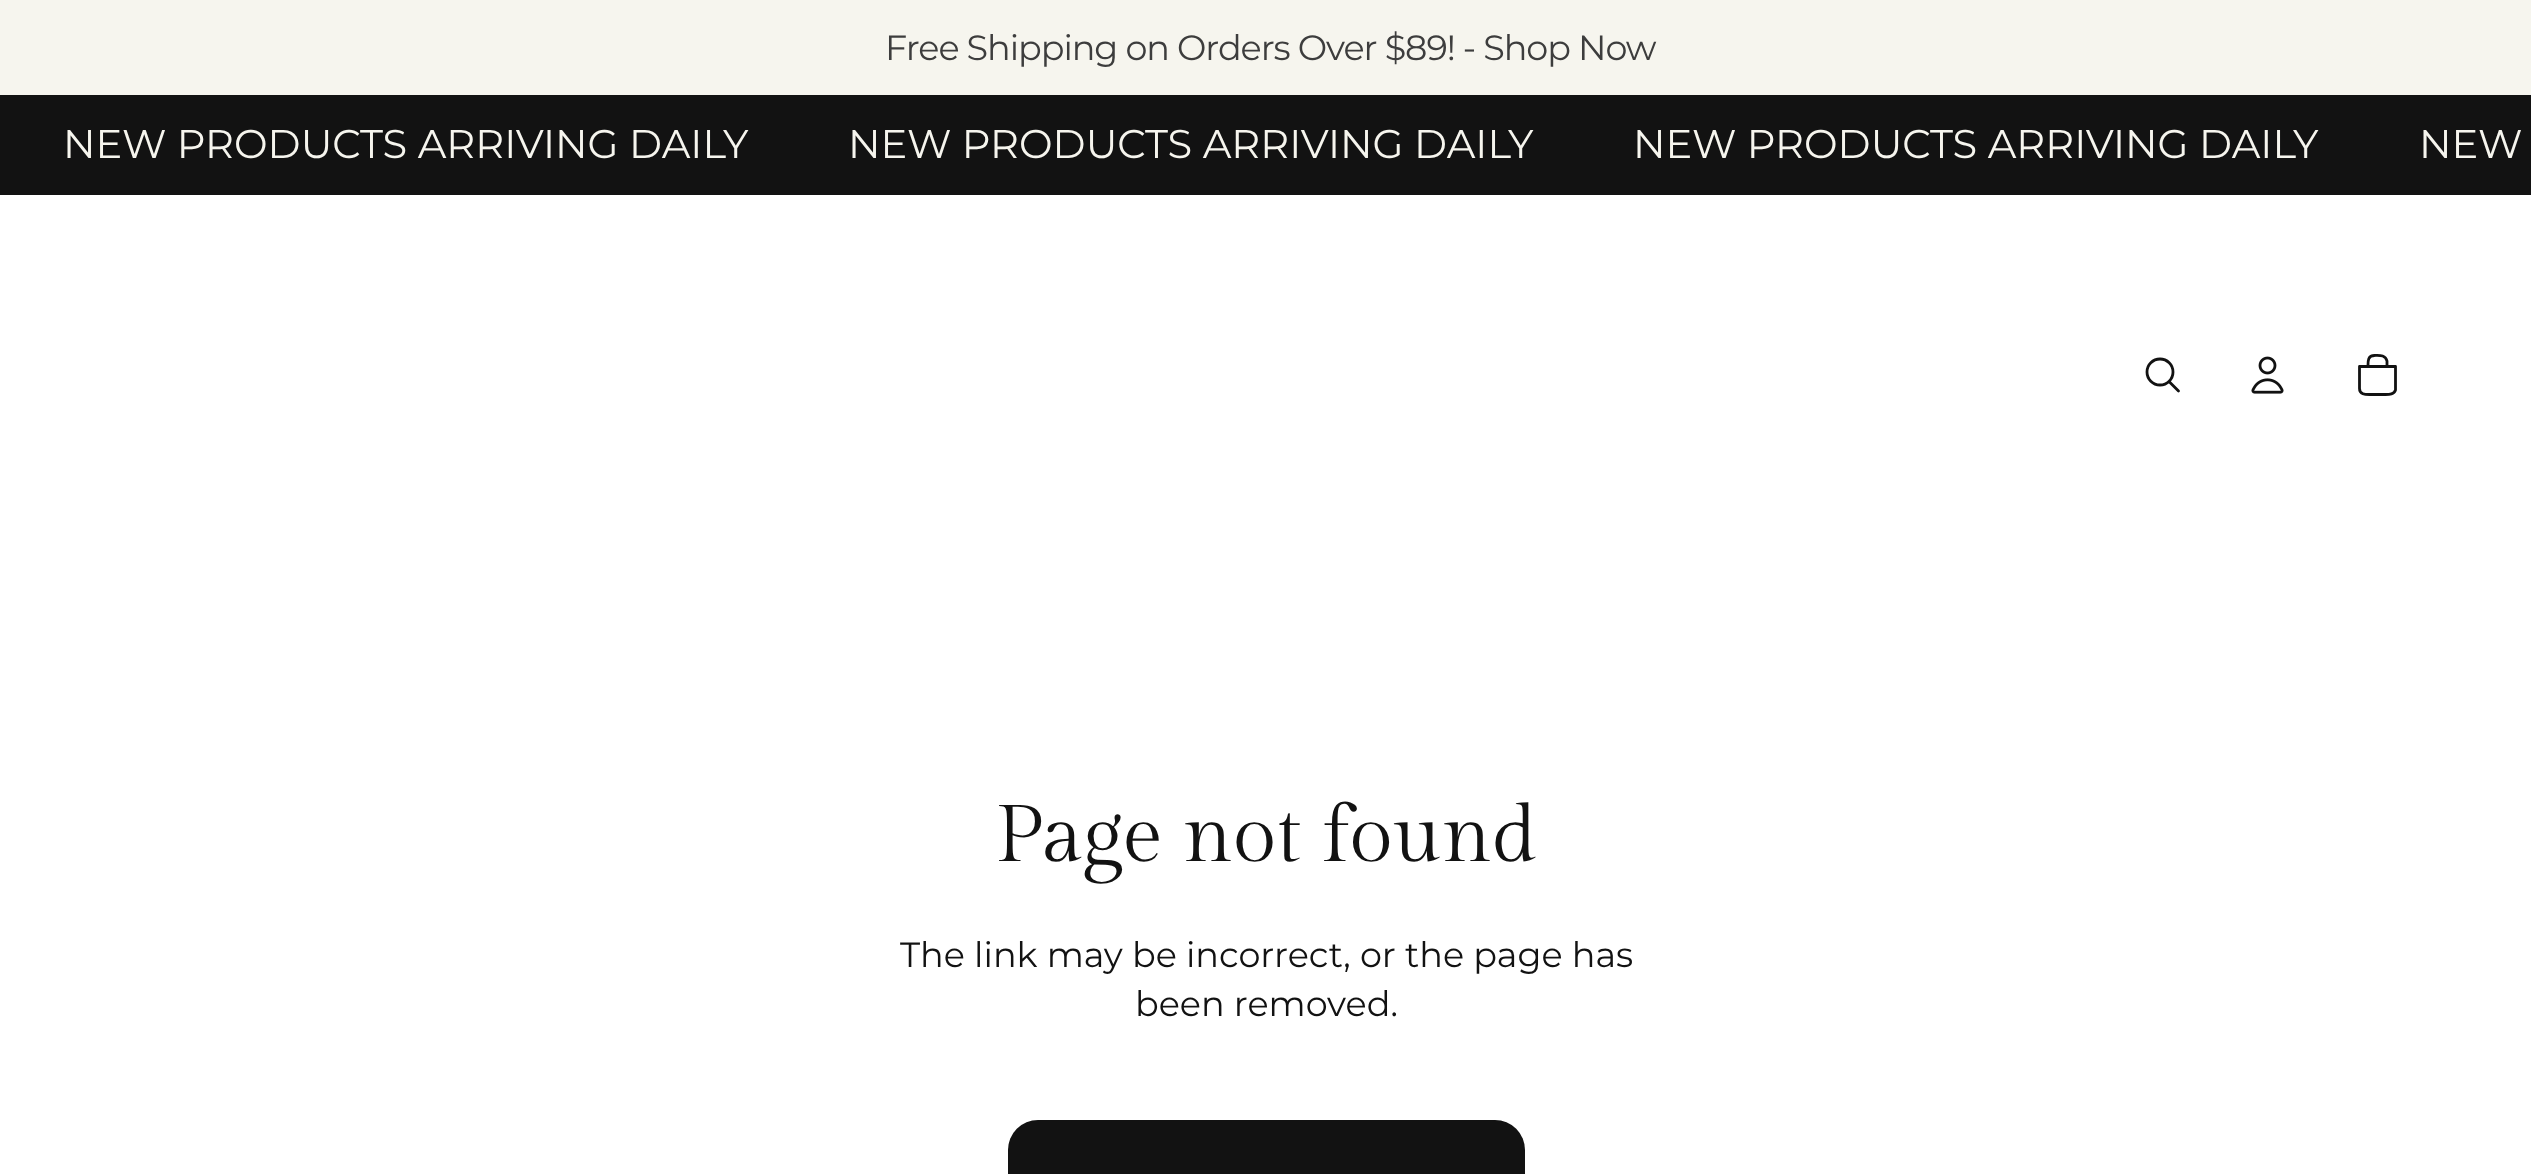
<!DOCTYPE html>
<meta charset="utf-8">
<style>body { margin: 0 } canvas { display: block }</style>
<canvas id="canvas" width="2531" height="1174"></canvas>
<img id="img1" src="images/1.png" hidden>
<script>
window.onload = function () {
    const canvas = document.getElementById('canvas');
    const context = canvas.getContext('2d');
    context.miterLimit = 4;
    context.fontKerning = 'normal';

    context.fillStyle = 'rgb(255, 255, 255)';
    context.fillRect(0, 0, 2531, 1174);
    context.fillStyle = 'rgb(246, 245, 238)';
    context.fillRect(0, 0, 2531, 95);
    context.fillStyle = 'rgb(18, 18, 18)';
    context.fillRect(0, 95, 2531, 100);
    context.beginPath();
    context.arc(2160, 372, 13, 0, 2 * Math.PI);
    context.strokeStyle = 'rgb(18, 18, 18)';
    context.lineWidth = 2.8;
    context.stroke();
    context.beginPath();
    context.moveTo(2169.5, 382);
    context.lineTo(2178.5, 391);
    context.lineCap = 'round';
    context.lineJoin = 'round';
    context.stroke();
    context.drawImage(document.getElementById('img1'), 2251, 356, 33, 38);
    context.beginPath();
    context.moveTo(2359.5, 366.5);
    context.lineTo(2395.5, 366.5);
    context.lineTo(2395.5, 390);
    context.bezierCurveTo(2394, 394.5, 2389.5, 394.5, 2385.5, 394.5);
    context.lineTo(2369.5, 394.5);
    context.bezierCurveTo(2365, 394.5, 2359.5, 394.5, 2359.5, 388.5);
    context.closePath();
    context.moveTo(2374, 355.5);
    context.bezierCurveTo(2379, 355.5, 2385.5, 354.5, 2387, 361);
    context.lineTo(2387, 366.5);
    context.lineTo(2368, 366.5);
    context.bezierCurveTo(2368, 361.5, 2367.5, 355.5, 2374.5, 355.5);
    context.stroke();
    context.beginPath();
    context.roundRect(1008, 1120, 517, 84, 30);
    context.fill();
    context.letterSpacing = '-1.05px';
    context.font = '35px Montserrat';
    context.fillStyle = 'rgb(61, 61, 61)';
    context.fillText('Free Shipping on Orders Over $89! - Shop Now', 885, 60);
    context.letterSpacing = '0px';
    context.font = '40px Montserrat';
    context.fillStyle = 'rgb(246, 245, 238)';
    context.fillText('NEW PRODUCTS ARRIVING DAILY', 63, 158);
    context.fillText('NEW PRODUCTS ARRIVING DAILY', 848, 158);
    context.fillText('NEW PRODUCTS ARRIVING DAILY', 1633, 158);
    context.fillText('NEW', 2419, 158);
    context.font = '80px Gilda Display';
    context.fillStyle = 'rgb(18, 18, 18)';
    context.fillText('Page not found', 995, 861);
    context.font = '35px Montserrat';
    context.fillText('The link may be incorrect, or the page has', 900, 967);
    context.fillText('been removed.', 1135, 1016);
};
</script>
